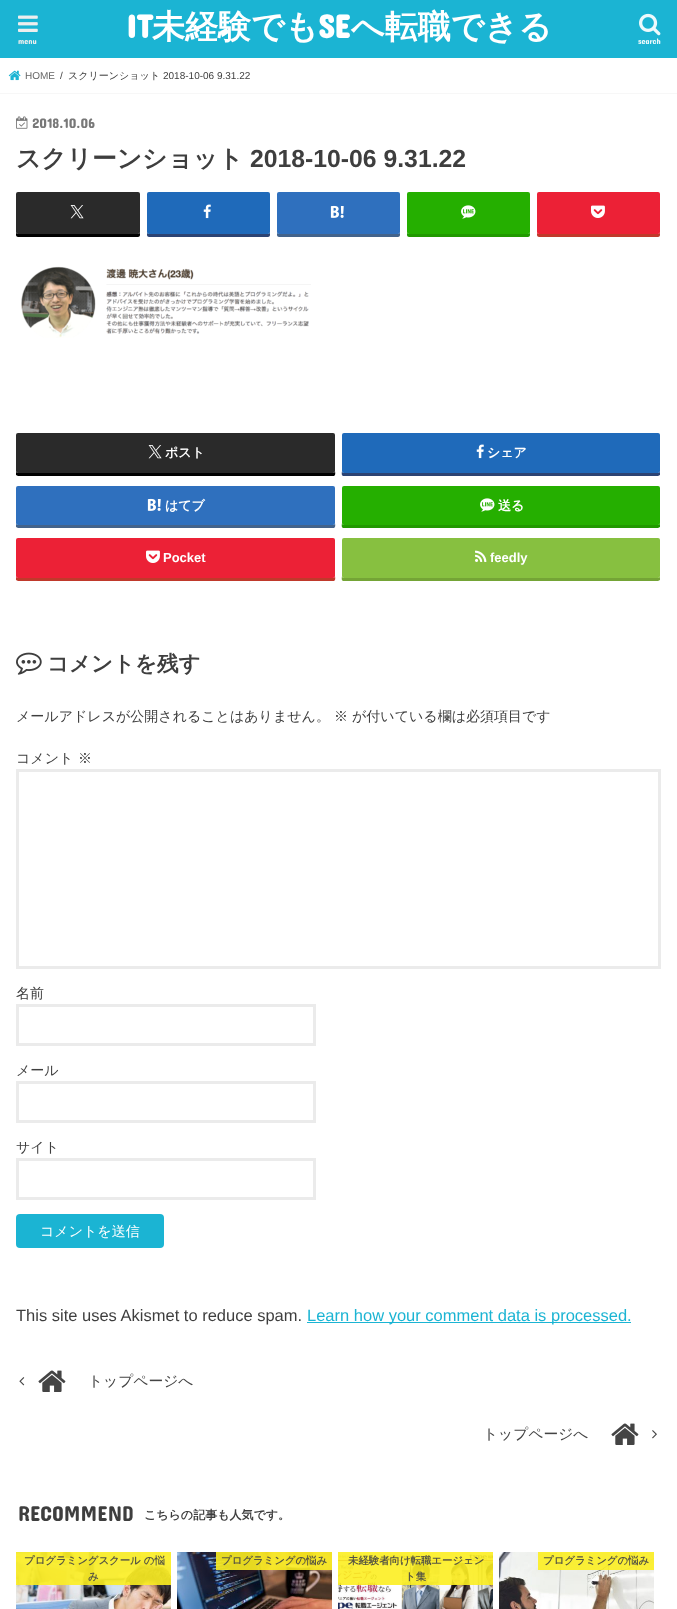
<!DOCTYPE html>
<meta charset="utf-8">
<style>body { margin: 0 } canvas { display: block }</style>
<canvas id="canvas" width="677" height="1609"></canvas>
<img id="img1" src="images/1.png" hidden>
<img id="img2" src="images/2.png" hidden>
<img id="img3" src="images/3.png" hidden>
<img id="img4" src="images/4.png" hidden>
<img id="img5" src="images/5.png" hidden>
<img id="img6" src="images/6.png" hidden>
<img id="img7" src="images/7.png" hidden>
<img id="img8" src="images/8.png" hidden>
<img id="img9" src="images/9.png" hidden>
<img id="img10" src="images/10.png" hidden>
<img id="img11" src="images/11.png" hidden>
<img id="img12" src="images/12.png" hidden>
<img id="img13" src="images/13.png" hidden>
<img id="img14" src="images/14.png" hidden>
<img id="img15" src="images/15.png" hidden>
<img id="img16" src="images/16.png" hidden>
<img id="img17" src="images/17.png" hidden>
<img id="img18" src="images/18.png" hidden>
<img id="img19" src="images/19.png" hidden>
<script>
window.onload = function () {
    const canvas = document.getElementById('canvas');
    const context = canvas.getContext('2d');
    context.miterLimit = 4;
    context.fontKerning = 'normal';

    context.fillStyle = 'rgb(255, 255, 255)';
    context.fillRect(0, 0, 677, 1609);
    context.fillStyle = 'rgb(27, 180, 211)';
    context.fillRect(0, 0, 677, 58);
    context.drawImage(document.getElementById('img1'), 18, 15, 20, 17);
    context.drawImage(document.getElementById('img2'), 639, 13, 22, 23);
    context.fillStyle = 'rgb(247, 247, 247)';
    context.fillRect(0, 93, 677, 1);
    context.drawImage(document.getElementById('img3'), 8, 70, 13, 11);
    context.fillStyle = 'rgb(221, 221, 221)';
    context.filter = 'blur(0.5px)';
    context.beginPath();
    context.rect(0, 94, 677, 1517);
    context.fill();
    context.filter = 'none';
    context.fillStyle = 'rgb(255, 255, 255)';
    context.fillRect(0, 94, 677, 1515);
    context.drawImage(document.getElementById('img4'), 16, 116, 12, 13);
    context.fillStyle = 'rgb(0, 0, 0)';
    context.beginPath();
    context.moveTo(16, 232);
    context.lineTo(16, 235);
    context.bezierCurveTo(16, 236, 17, 237, 18, 237);
    context.lineTo(138, 237);
    context.bezierCurveTo(139, 237, 140, 236, 140, 235);
    context.lineTo(140, 232);
    context.bezierCurveTo(140, 233, 139, 234, 138, 234);
    context.lineTo(18, 234);
    context.bezierCurveTo(17, 234, 16, 233, 16, 232);
    context.closePath();
    context.fill();
    context.fillStyle = 'rgb(42, 42, 42)';
    context.beginPath();
    context.roundRect(16, 192, 124, 42, 2);
    context.fill();
    context.drawImage(document.getElementById('img5'), 70, 205, 14, 14);
    context.fillStyle = 'rgb(44, 67, 115)';
    context.beginPath();
    context.moveTo(147, 232);
    context.lineTo(147, 235);
    context.bezierCurveTo(147, 236, 148, 237, 149, 237);
    context.lineTo(268, 237);
    context.bezierCurveTo(269, 237, 270, 236, 270, 235);
    context.lineTo(270, 232);
    context.bezierCurveTo(270, 233, 269, 234, 268, 234);
    context.lineTo(149, 234);
    context.bezierCurveTo(148, 234, 147, 233, 147, 232);
    context.closePath();
    context.fill();
    context.fillStyle = 'rgb(31, 106, 186)';
    context.beginPath();
    context.roundRect(147, 192, 123, 42, 2);
    context.fill();
    context.drawImage(document.getElementById('img6'), 203, 204, 8, 15);
    context.fillStyle = 'rgb(67, 99, 139)';
    context.beginPath();
    context.moveTo(277, 232);
    context.lineTo(277, 235);
    context.bezierCurveTo(277, 236, 278, 237, 279, 237);
    context.lineTo(398, 237);
    context.bezierCurveTo(399, 237, 400, 236, 400, 235);
    context.lineTo(400, 232);
    context.bezierCurveTo(400, 233, 399, 234, 398, 234);
    context.lineTo(279, 234);
    context.bezierCurveTo(278, 234, 277, 233, 277, 232);
    context.closePath();
    context.fill();
    context.fillStyle = 'rgb(47, 112, 190)';
    context.beginPath();
    context.roundRect(277, 192, 123, 42, 2);
    context.fill();
    context.drawImage(document.getElementById('img7'), 330, 205, 14, 13);
    context.fillStyle = 'rgb(33, 153, 0)';
    context.beginPath();
    context.moveTo(407, 232);
    context.lineTo(407, 235);
    context.bezierCurveTo(407, 236, 408, 237, 409, 237);
    context.lineTo(528, 237);
    context.bezierCurveTo(529, 237, 530, 236, 530, 235);
    context.lineTo(530, 232);
    context.bezierCurveTo(530, 233, 529, 234, 528, 234);
    context.lineTo(409, 234);
    context.bezierCurveTo(408, 234, 407, 233, 407, 232);
    context.closePath();
    context.fill();
    context.fillStyle = 'rgb(37, 175, 0)';
    context.beginPath();
    context.roundRect(407, 192, 123, 42, 2);
    context.fill();
    context.drawImage(document.getElementById('img8'), 461, 205, 15, 14);
    context.fillStyle = 'rgb(192, 57, 43)';
    context.beginPath();
    context.moveTo(537, 232);
    context.lineTo(537, 235);
    context.bezierCurveTo(537, 236, 538, 237, 539, 237);
    context.lineTo(658, 237);
    context.bezierCurveTo(659, 237, 660, 236, 660, 235);
    context.lineTo(660, 232);
    context.bezierCurveTo(660, 233, 659, 234, 658, 234);
    context.lineTo(539, 234);
    context.bezierCurveTo(538, 234, 537, 233, 537, 232);
    context.closePath();
    context.fill();
    context.fillStyle = 'rgb(236, 33, 54)';
    context.beginPath();
    context.roundRect(537, 192, 123, 42, 2);
    context.fill();
    context.drawImage(document.getElementById('img9'), 591, 205, 14, 13);
    context.drawImage(document.getElementById('img10'), 21, 266, 290, 72);
    context.fillStyle = 'rgb(0, 0, 0)';
    context.beginPath();
    context.moveTo(16, 471);
    context.lineTo(16, 475);
    context.lineTo(18, 476);
    context.lineTo(334, 476);
    context.bezierCurveTo(336, 475, 335, 472, 335, 471);
    context.bezierCurveTo(335, 472, 334, 473, 333, 473);
    context.lineTo(18, 473);
    context.bezierCurveTo(17, 473, 16, 472, 16, 471);
    context.closePath();
    context.fill();
    context.fillStyle = 'rgb(42, 42, 42)';
    context.beginPath();
    context.roundRect(16, 433, 319, 40, 2);
    context.fill();
    context.drawImage(document.getElementById('img5'), 148, 445, 14, 14);
    context.fillStyle = 'rgb(44, 67, 115)';
    context.beginPath();
    context.moveTo(342, 471);
    context.bezierCurveTo(342, 472, 341, 475, 343, 476);
    context.lineTo(658, 476);
    context.lineTo(660, 475);
    context.lineTo(660, 471);
    context.bezierCurveTo(660, 472, 659, 473, 658, 473);
    context.lineTo(344, 473);
    context.bezierCurveTo(343, 473, 342, 472, 342, 471);
    context.closePath();
    context.fill();
    context.fillStyle = 'rgb(31, 106, 186)';
    context.beginPath();
    context.roundRect(342, 433, 318, 40, 2);
    context.fill();
    context.drawImage(document.getElementById('img6'), 476, 444, 8, 15);
    context.fillStyle = 'rgb(67, 99, 139)';
    context.beginPath();
    context.moveTo(16, 523);
    context.lineTo(16, 527);
    context.lineTo(18, 528);
    context.lineTo(334, 528);
    context.bezierCurveTo(336, 527, 335, 524, 335, 523);
    context.bezierCurveTo(335, 524, 334, 525, 333, 525);
    context.lineTo(18, 525);
    context.bezierCurveTo(17, 525, 16, 524, 16, 523);
    context.closePath();
    context.fill();
    context.fillStyle = 'rgb(47, 112, 190)';
    context.beginPath();
    context.roundRect(16, 486, 319, 39, 2);
    context.fill();
    context.drawImage(document.getElementById('img7'), 147, 498, 14, 13);
    context.fillStyle = 'rgb(33, 153, 0)';
    context.beginPath();
    context.moveTo(342, 523);
    context.bezierCurveTo(342, 524, 341, 527, 343, 528);
    context.lineTo(658, 528);
    context.lineTo(660, 527);
    context.lineTo(660, 523);
    context.bezierCurveTo(660, 524, 659, 525, 658, 525);
    context.lineTo(344, 525);
    context.bezierCurveTo(343, 525, 342, 524, 342, 523);
    context.closePath();
    context.fill();
    context.fillStyle = 'rgb(37, 175, 0)';
    context.beginPath();
    context.roundRect(342, 486, 318, 39, 2);
    context.fill();
    context.drawImage(document.getElementById('img8'), 480, 498, 15, 14);
    context.fillStyle = 'rgb(192, 57, 43)';
    context.beginPath();
    context.moveTo(16, 576);
    context.lineTo(16, 580);
    context.lineTo(18, 581);
    context.lineTo(334, 581);
    context.bezierCurveTo(336, 580, 335, 577, 335, 576);
    context.bezierCurveTo(335, 577, 334, 578, 333, 578);
    context.lineTo(18, 578);
    context.bezierCurveTo(17, 578, 16, 577, 16, 576);
    context.closePath();
    context.fill();
    context.fillStyle = 'rgb(236, 33, 54)';
    context.beginPath();
    context.roundRect(16, 538, 319, 40, 2);
    context.fill();
    context.drawImage(document.getElementById('img9'), 146, 550, 14, 13);
    context.fillStyle = 'rgb(116, 164, 54)';
    context.beginPath();
    context.moveTo(342, 576);
    context.bezierCurveTo(342, 577, 341, 580, 343, 581);
    context.lineTo(658, 581);
    context.lineTo(660, 580);
    context.lineTo(660, 576);
    context.bezierCurveTo(660, 577, 659, 578, 658, 578);
    context.lineTo(344, 578);
    context.bezierCurveTo(343, 578, 342, 577, 342, 576);
    context.closePath();
    context.fill();
    context.fillStyle = 'rgb(135, 192, 64)';
    context.beginPath();
    context.roundRect(342, 538, 318, 40, 2);
    context.fill();
    context.drawImage(document.getElementById('img11'), 475, 550, 12, 12);
    context.drawImage(document.getElementById('img12'), 16, 652, 26, 23);
    context.beginPath();
    context.moveTo(17.5, 770.5);
    context.lineTo(659.5, 770.5);
    context.lineTo(659.5, 967.5);
    context.lineTo(17.5, 967.5);
    context.closePath();
    context.strokeStyle = 'rgb(235, 235, 235)';
    context.lineWidth = 3;
    context.stroke();
    context.beginPath();
    context.moveTo(17.5, 1005.5);
    context.lineTo(314.5, 1005.5);
    context.lineTo(314.5, 1044.5);
    context.lineTo(17.5, 1044.5);
    context.closePath();
    context.stroke();
    context.beginPath();
    context.moveTo(17.5, 1082.5);
    context.lineTo(314.5, 1082.5);
    context.lineTo(314.5, 1121.5);
    context.lineTo(17.5, 1121.5);
    context.closePath();
    context.stroke();
    context.beginPath();
    context.moveTo(17.5, 1159.5);
    context.lineTo(314.5, 1159.5);
    context.lineTo(314.5, 1198.5);
    context.lineTo(17.5, 1198.5);
    context.closePath();
    context.stroke();
    context.fillStyle = 'rgb(27, 180, 211)';
    context.beginPath();
    context.roundRect(16, 1214, 148, 34, 4);
    context.fill();
    context.fillRect(307, 1322, 324, 1);
    context.drawImage(document.getElementById('img13'), 19, 1377, 6, 9);
    context.drawImage(document.getElementById('img14'), 38, 1370, 28, 22);
    context.drawImage(document.getElementById('img14'), 611, 1423, 28, 22);
    context.drawImage(document.getElementById('img15'), 652, 1430, 5, 9);
    context.drawImage(document.getElementById('img16'), 16, 1552, 155, 57);
    context.fillStyle = 'rgba(252, 238, 33, 0.9)';
    context.fillRect(16, 1552, 155, 33);
    context.drawImage(document.getElementById('img17'), 177, 1552, 155, 57);
    context.fillRect(216, 1552, 116, 18);
    context.drawImage(document.getElementById('img18'), 338, 1553, 155, 56);
    context.fillRect(338, 1552, 155, 33);
    context.drawImage(document.getElementById('img19'), 499, 1552, 155, 57);
    context.fillRect(538, 1552, 116, 18);
    context.font = '8px Concert One';
    context.fillStyle = 'rgb(238, 238, 238)';
    context.fillText('menu', 18, 44);
    context.font = 'bold 33px Concert One';
    context.fillStyle = 'rgb(255, 255, 255)';
    context.fillText('IT', 126, 38);
    context.font = 'bold 33px WenQuanYi Zen Hei';
    context.fillText('未経験でも', 152, 38);
    context.font = 'bold 33px Concert One';
    context.fillText('SE', 318, 38);
    context.font = 'bold 33px WenQuanYi Zen Hei';
    context.fillText('へ転職できる', 351, 38);
    context.font = '8px Concert One';
    context.fillStyle = 'rgb(237, 249, 252)';
    context.fillText('search', 638, 44);
    context.font = '10px Liberation Sans';
    context.fillStyle = 'rgb(102, 102, 102)';
    context.fillText('HOME', 25, 79);
    context.fillStyle = 'rgb(62, 62, 62)';
    context.fillText('/', 60, 79);
    context.font = '500 10px WenQuanYi Zen Hei';
    context.fillText('スクリーンショット', 68, 79);
    context.font = '10px Liberation Sans';
    context.fillText('2018-10-06 9.31.22', 163, 79);
    context.font = '14px Concert One';
    context.fillStyle = 'rgb(120, 120, 120)';
    context.fillText('2018.10.06', 32, 128);
    context.font = 'bold 24.75px WenQuanYi Zen Hei';
    context.fillStyle = 'rgb(62, 62, 62)';
    context.fillText('スクリーンショット', 16, 167);
    context.font = 'bold 24.75px Liberation Sans';
    context.fillText('2018-10-06 9.31.22', 250, 167);
    context.font = 'bold 13px WenQuanYi Zen Hei';
    context.fillStyle = 'rgb(255, 255, 255)';
    context.fillText('ポスト', 165, 457);
    context.fillText('シェア', 487, 457);
    context.fillText('はてブ', 165, 510);
    context.fillText('送る', 498, 510);
    context.font = 'bold 13px Liberation Sans';
    context.fillText('Pocket', 163, 562);
    context.fillText('feedly', 490, 562);
    context.font = 'bold 21.5px WenQuanYi Zen Hei';
    context.fillStyle = 'rgb(62, 62, 62)';
    context.fillText('コメントを残す', 47, 671);
    context.font = '500 14px WenQuanYi Zen Hei';
    context.fillText('メールアドレスが公開されることはありません。', 16, 721);
    context.fillText('※', 334, 721);
    context.fillText('が付いている欄は必須項目です', 352, 721);
    context.fillText('コメント', 16, 763);
    context.fillText('※', 78, 763);
    context.fillText('名前', 16, 998);
    context.fillText('メール', 16, 1075);
    context.fillText('サイト', 16, 1152);
    context.fillStyle = 'rgb(255, 255, 255)';
    context.fillText('コメントを送信', 40, 1236);
    context.font = '16.5px Liberation Sans';
    context.fillStyle = 'rgb(62, 62, 62)';
    context.fillText('This site uses Akismet to reduce spam.', 16, 1321);
    context.fillStyle = 'rgb(27, 180, 211)';
    context.fillText('Learn how your comment data is processed.', 307, 1321);
    context.font = '500 14.75px WenQuanYi Zen Hei';
    context.fillStyle = 'rgb(68, 68, 68)';
    context.fillText('トップページへ', 88, 1386);
    context.fillText('トップページへ', 483, 1439);
    context.font = '21.5px Concert One';
    context.fillStyle = 'rgb(62, 62, 62)';
    context.fillText('RECOMMEND', 18, 1521);
    context.font = 'bold 12px WenQuanYi Zen Hei';
    context.fillText('こちらの記事も人気です。', 144, 1519);
    context.font = 'bold 10.4px WenQuanYi Zen Hei';
    context.fillStyle = 'rgb(86, 85, 66)';
    context.fillText('プログラミングスクール の悩', 24, 1564);
    context.fillText('み', 88, 1580);
    context.fillText('プログラミングの悩み', 221, 1564);
    context.fillText('未経験者向け転職エージェン', 348, 1564);
    context.fillText('ト集', 405, 1580);
    context.fillText('プログラミングの悩み', 543, 1564);
};
</script>
